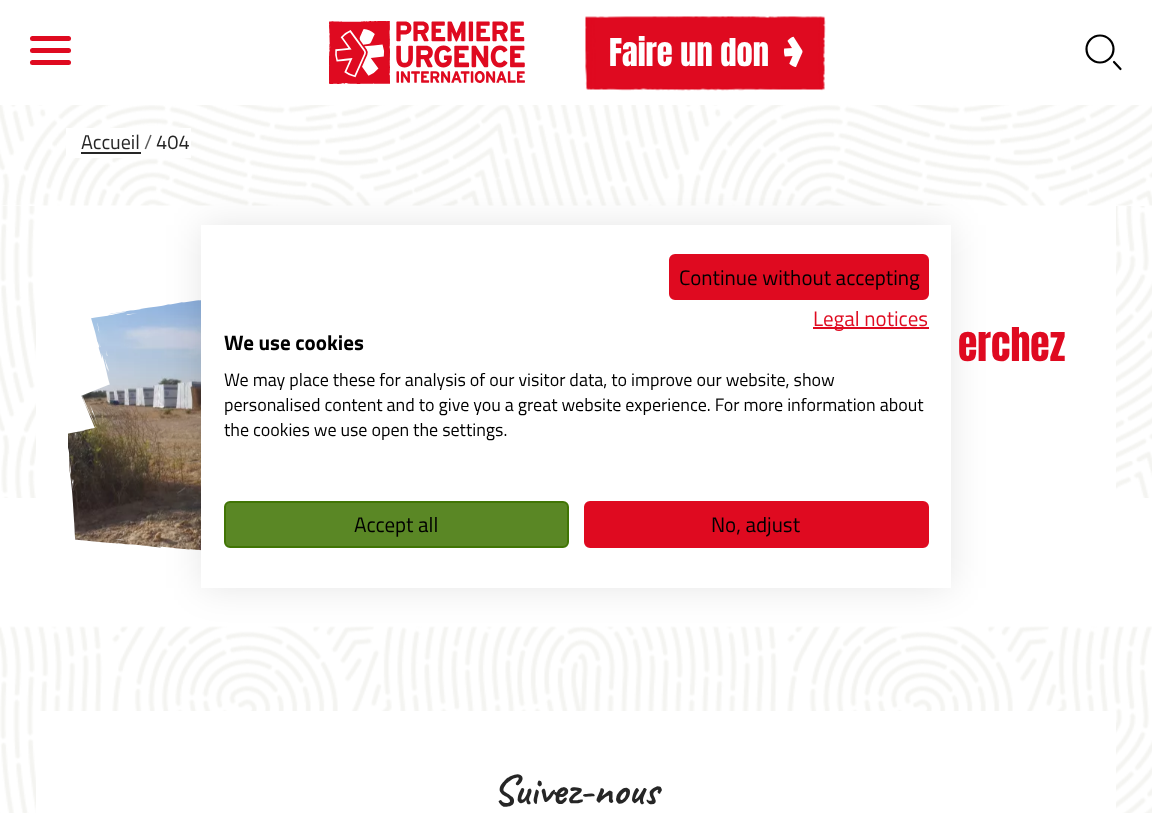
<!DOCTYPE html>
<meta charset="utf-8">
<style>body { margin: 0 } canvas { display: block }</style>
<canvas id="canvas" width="1152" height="813"></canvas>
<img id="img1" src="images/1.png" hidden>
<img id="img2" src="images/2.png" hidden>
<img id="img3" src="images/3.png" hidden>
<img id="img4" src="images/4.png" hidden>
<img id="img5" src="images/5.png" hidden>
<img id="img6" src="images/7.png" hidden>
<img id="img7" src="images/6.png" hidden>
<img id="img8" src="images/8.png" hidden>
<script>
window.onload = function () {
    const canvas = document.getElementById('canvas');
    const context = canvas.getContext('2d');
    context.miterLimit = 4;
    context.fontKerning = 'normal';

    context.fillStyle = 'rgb(255, 255, 255)';
    context.fillRect(0, 0, 1152, 813);
    context.drawImage(document.getElementById('img1'), 329, 21, 196, 63);
    context.fillStyle = 'rgb(223, 10, 32)';
    context.beginPath();
    context.roundRect(30, 36, 41, 5, 2.5);
    context.fill();
    context.beginPath();
    context.roundRect(30, 48, 41, 5, 2.5);
    context.fill();
    context.beginPath();
    context.roundRect(30, 60, 41, 5, 2.5);
    context.fill();
    context.beginPath();
    context.arc(1100, 49, 13.5, 0, 2 * Math.PI);
    context.strokeStyle = 'rgb(0, 0, 0)';
    context.lineWidth = 2.2;
    context.stroke();
    context.beginPath();
    context.moveTo(1120.5, 69);
    context.lineTo(1114, 62);
    context.lineCap = 'round';
    context.stroke();
    context.drawImage(document.getElementById('img2'), 585, 16, 241, 75);
    context.drawImage(document.getElementById('img3'), 783, 36, 20, 32);
    context.drawImage(document.getElementById('img4'), 0, 105, 1152, 101);
    context.fillStyle = 'rgb(255, 255, 255)';
    context.fillRect(66, 128, 125, 30);
    context.fillStyle = 'rgb(38, 38, 38)';
    context.fillRect(81, 152, 60, 2);
    context.drawImage(document.getElementById('img5'), 0, 206, 1152, 292);
    context.fillStyle = 'rgb(255, 255, 255)';
    context.fillRect(36, 206, 1080, 292);
    context.drawImage(document.getElementById('img6'), 68, 300, 133, 251);
    context.drawImage(document.getElementById('img7'), 68, 263, 133, 307);
    context.drawImage(document.getElementById('img8'), 0, 626, 1152, 187);
    context.fillRect(36, 711, 1080, 102);
    context.fillStyle = 'rgba(0, 0, 0, 0.1)';
    context.filter = 'blur(18px)';
    context.beginPath();
    context.rect(201, 225, 750, 363);
    context.fill();
    context.filter = 'none';
    context.fillStyle = 'rgb(255, 255, 255)';
    context.fillRect(201, 225, 750, 363);
    context.fillStyle = 'rgb(223, 10, 32)';
    context.beginPath();
    context.roundRect(670, 255, 258, 44, 5);
    context.fill();
    context.strokeStyle = 'rgb(223, 10, 32)';
    context.lineWidth = 2;
    context.stroke();
    context.fillRect(813, 327, 116, 2);
    context.fillStyle = 'rgb(90, 135, 37)';
    context.beginPath();
    context.roundRect(225, 502, 343, 45, 5);
    context.fill();
    context.strokeStyle = 'rgb(65, 117, 5)';
    context.stroke();
    context.fillStyle = 'rgb(223, 10, 32)';
    context.beginPath();
    context.roundRect(585, 502, 343, 45, 5);
    context.fill();
    context.strokeStyle = 'rgb(223, 10, 32)';
    context.stroke();
    context.font = '32.5px Anton';
    context.fillStyle = 'rgb(255, 255, 255)';
    context.fillText('Faire un don', 609, 66);
    context.font = '20px Titillium Web';
    context.fillStyle = 'rgb(38, 38, 38)';
    context.fillText('Accueil', 81, 149);
    context.fillStyle = 'rgb(92, 92, 92)';
    context.fillText('/', 144, 149);
    context.fillStyle = 'rgb(38, 38, 38)';
    context.fillText('404', 156, 149);
    context.font = '39.5px Anton';
    context.fillStyle = 'rgb(223, 10, 32)';
    context.fillText('erchez', 958, 361);
    context.font = 'bold 42.5px Caveat';
    context.fillStyle = 'rgb(38, 38, 38)';
    context.fillText('Suivez-nous', 493, 804);
    context.font = '21px Titillium Web';
    context.fillStyle = 'rgb(0, 0, 0)';
    context.fillText('Continue without accepting', 679, 285);
    context.fillStyle = 'rgb(223, 10, 32)';
    context.fillText('Legal notices', 813, 326);
    context.font = 'bold 21px Titillium Web';
    context.fillStyle = 'rgb(0, 0, 0)';
    context.fillText('We use cookies', 224, 350);
    context.font = '18px Titillium Web';
    context.fillText('We may place these for analysis of our visitor data, to improve our website, show', 224, 386);
    context.fillText('personalised content and to give you a great website experience. For more information about', 224, 411);
    context.fillText('the cookies we use open the settings.', 224, 436);
    context.font = '21px Titillium Web';
    context.fillText('Accept all', 354, 532);
    context.fillText('No, adjust', 711, 532);
};
</script>
